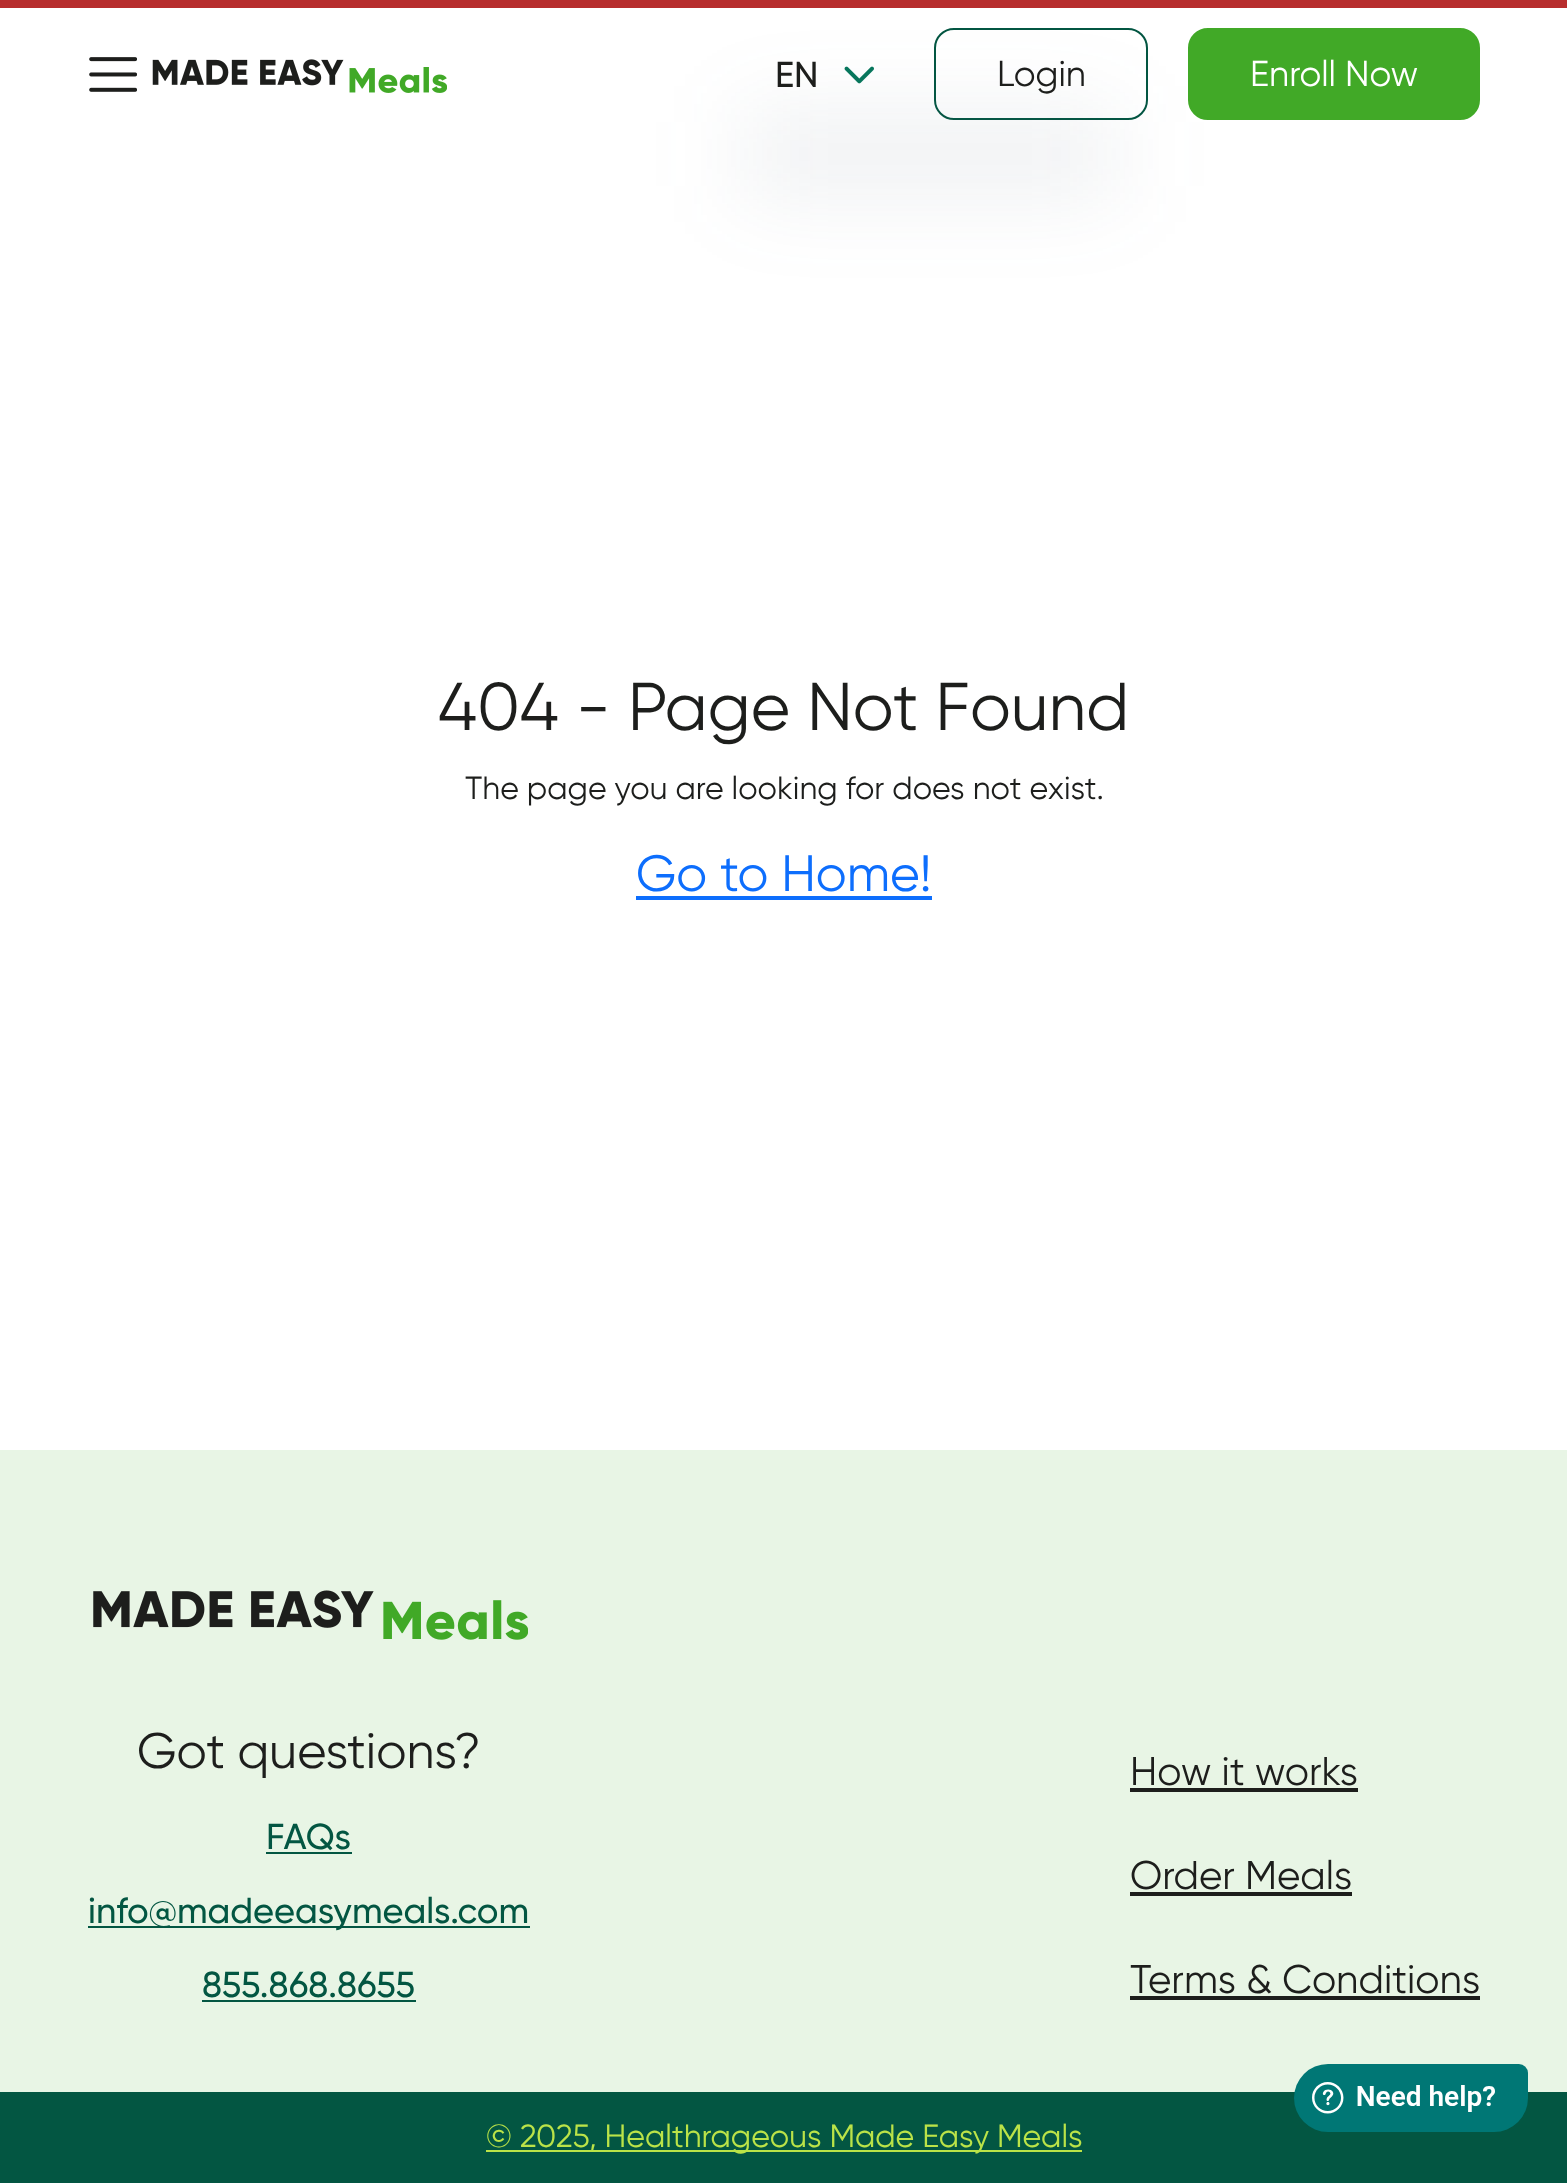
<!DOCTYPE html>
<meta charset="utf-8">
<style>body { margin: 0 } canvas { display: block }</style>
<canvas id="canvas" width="1567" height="2183"></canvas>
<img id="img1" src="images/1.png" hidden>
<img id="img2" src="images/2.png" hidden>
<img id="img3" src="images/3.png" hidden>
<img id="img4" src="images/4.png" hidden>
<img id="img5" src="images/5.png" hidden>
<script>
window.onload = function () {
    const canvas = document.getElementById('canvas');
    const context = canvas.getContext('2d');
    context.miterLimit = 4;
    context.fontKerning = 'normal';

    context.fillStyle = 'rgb(255, 255, 255)';
    context.fillRect(0, 0, 1567, 2183);
    context.fillStyle = 'rgb(183, 45, 45)';
    context.fillRect(0, 0, 1567, 8);
    context.drawImage(document.getElementById('img1'), 89, 57, 48, 35);
    context.drawImage(document.getElementById('img2'), 152, 59, 295, 34);
    context.drawImage(document.getElementById('img3'), 844, 66, 30, 18);
    context.beginPath();
    context.roundRect(935, 29, 212, 90, 19);
    context.strokeStyle = 'rgb(3, 86, 66)';
    context.lineWidth = 2;
    context.stroke();
    context.fillStyle = 'rgb(65, 169, 39)';
    context.beginPath();
    context.roundRect(1189, 29, 290, 90, 19);
    context.fill();
    context.strokeStyle = 'rgb(65, 169, 39)';
    context.stroke();
    context.fillStyle = 'rgba(79, 94, 120, 0.1)';
    context.filter = 'blur(45px)';
    context.beginPath();
    context.rect(742, 116, 376, 76);
    context.fill();
    context.filter = 'none';
    context.fillStyle = 'rgb(13, 110, 253)';
    context.fillRect(636, 896, 296, 4);
    context.fillStyle = 'rgb(232, 245, 229)';
    context.fillRect(0, 1450, 1567, 642);
    context.drawImage(document.getElementById('img4'), 93, 1590, 435, 50);
    context.fillStyle = 'rgb(3, 86, 66)';
    context.fillRect(266, 1852, 86, 2);
    context.fillRect(88, 1926, 442, 2);
    context.fillRect(202, 2000, 214, 2);
    context.fillStyle = 'rgb(29, 30, 28)';
    context.fillRect(1130, 1788, 228, 4);
    context.fillRect(1130, 1892, 222, 4);
    context.fillRect(1130, 1996, 350, 4);
    context.fillStyle = 'rgb(3, 86, 66)';
    context.fillRect(0, 2092, 1567, 91);
    context.fillStyle = 'rgb(187, 227, 72)';
    context.fillRect(486, 2150, 596, 2);
    context.drawImage(document.getElementById('img5'), 1294, 2064, 234, 68);
    context.font = '500 36px Gilroy';
    context.fillStyle = 'rgb(29, 30, 28)';
    context.fillText('EN', 775, 87);
    context.font = '36px Gilroy';
    context.fillText('Login', 997, 86);
    context.fillStyle = 'rgb(255, 255, 255)';
    context.fillText('Enroll Now', 1250, 86);
    context.font = '67.5px Gilroy';
    context.fillStyle = 'rgb(29, 30, 28)';
    context.fillText('404 - Page Not Found', 438, 730);
    context.font = '32px Gilroy';
    context.fillText('The page you are looking for does not exist.', 465, 799);
    context.font = '51px Gilroy';
    context.fillStyle = 'rgb(13, 110, 253)';
    context.fillText('Go to Home!', 636, 891);
    context.font = '50px Gilroy';
    context.fillStyle = 'rgb(29, 30, 28)';
    context.fillText('Got questions?', 137, 1768);
    context.font = '500 36px Gilroy';
    context.fillStyle = 'rgb(3, 86, 66)';
    context.fillText('FAQs', 266, 1849);
    context.fillText('info@madeeasymeals.com', 88, 1923);
    context.fillText('855.868.8655', 202, 1997);
    context.font = '40px Gilroy';
    context.fillStyle = 'rgb(29, 30, 28)';
    context.fillText('How it works', 1130, 1785);
    context.fillText('Order Meals', 1130, 1889);
    context.fillText('Terms & Conditions', 1130, 1993);
    context.letterSpacing = '-0.05px';
    context.font = '32px Gilroy';
    context.fillStyle = 'rgb(187, 227, 72)';
    context.fillText('© 2025', 486, 2147);
    context.fillText(', Healthrageous Made Easy Meals', 589, 2147);
};
</script>
